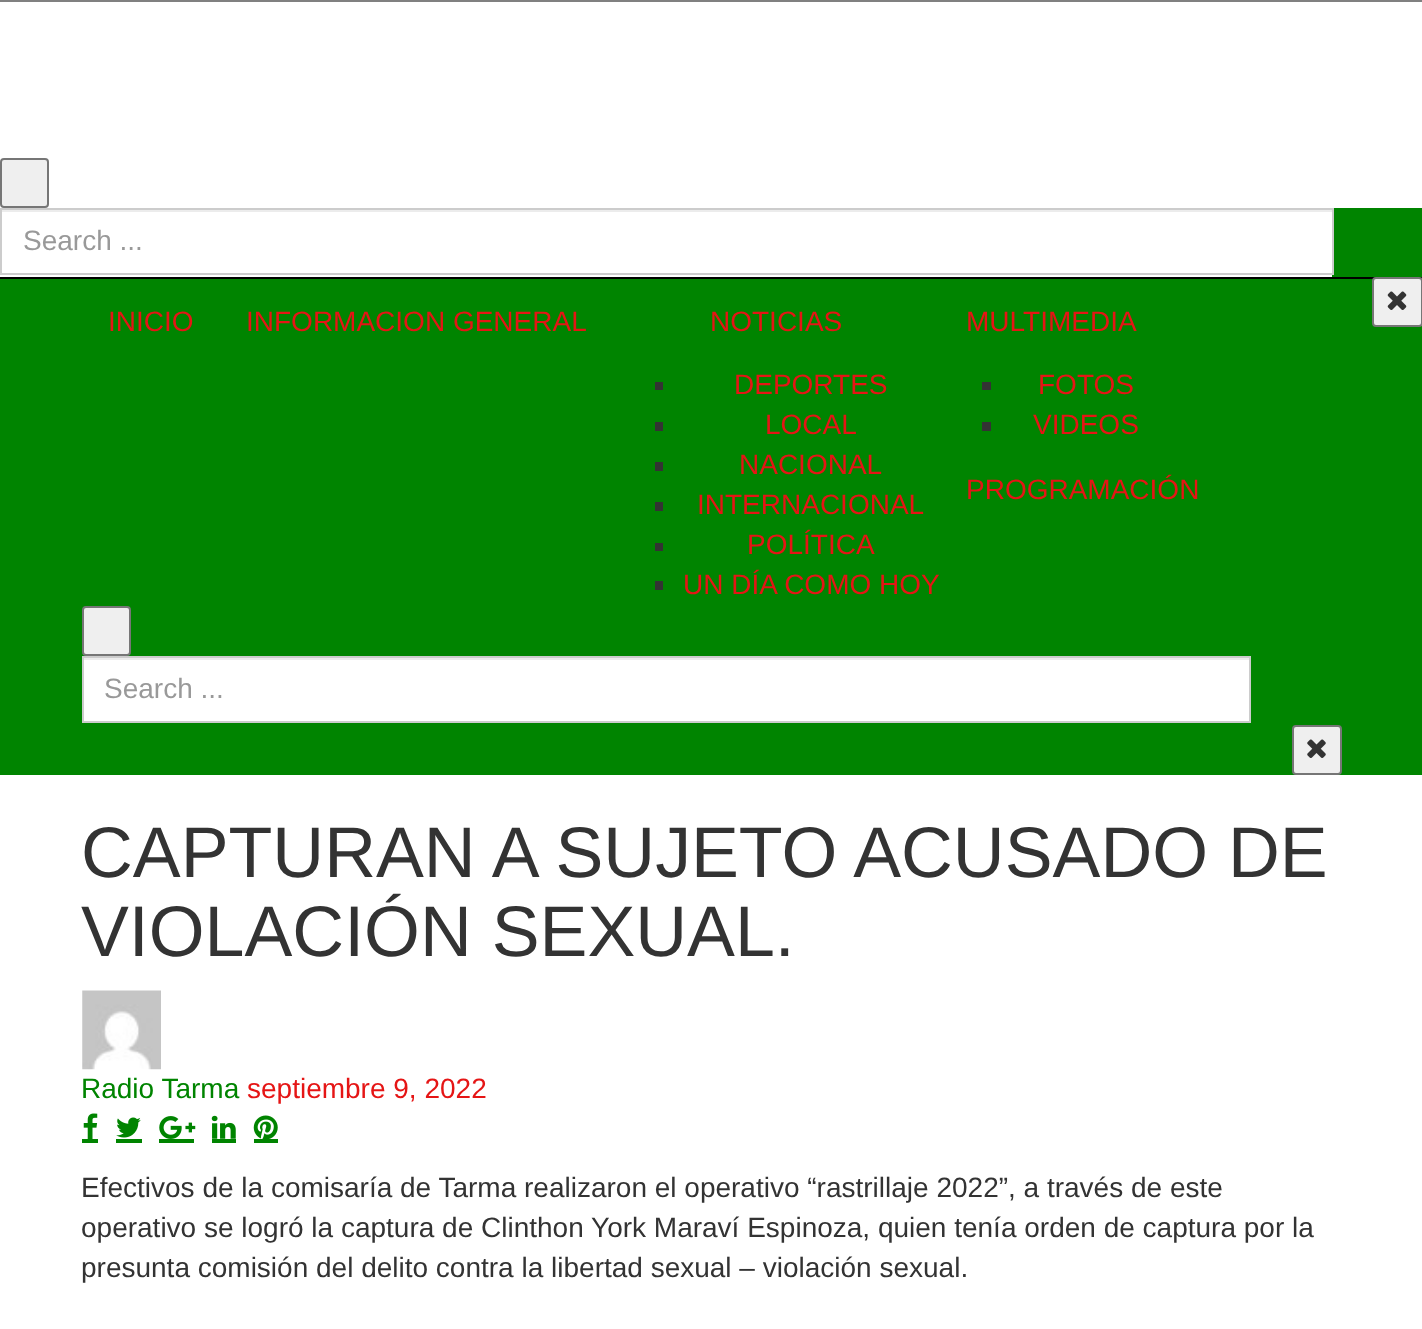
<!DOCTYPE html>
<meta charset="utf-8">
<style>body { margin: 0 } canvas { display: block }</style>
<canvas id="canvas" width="1422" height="1329"></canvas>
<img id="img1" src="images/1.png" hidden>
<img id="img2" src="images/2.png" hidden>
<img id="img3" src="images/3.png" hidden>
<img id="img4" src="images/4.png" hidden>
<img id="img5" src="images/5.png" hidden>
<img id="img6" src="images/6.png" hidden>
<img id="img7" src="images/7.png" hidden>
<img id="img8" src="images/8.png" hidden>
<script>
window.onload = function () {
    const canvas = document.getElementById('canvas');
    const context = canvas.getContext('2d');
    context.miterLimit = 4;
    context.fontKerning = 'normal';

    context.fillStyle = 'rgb(255, 255, 255)';
    context.fillRect(0, 0, 1422, 1329);
    context.fillStyle = 'rgb(128, 128, 128)';
    context.fillRect(0, 0, 1422, 2);
    context.fillStyle = 'rgb(239, 239, 239)';
    context.beginPath();
    context.roundRect(1, 159, 47, 48, 3);
    context.fill();
    context.strokeStyle = 'rgb(118, 118, 118)';
    context.lineWidth = 2;
    context.stroke();
    context.fillStyle = 'rgb(236, 236, 236)';
    context.fillRect(2, 210, 1330, 2);
    context.fillStyle = 'rgb(0, 132, 0)';
    context.fillRect(1332, 208, 90, 69);
    context.strokeStyle = 'rgb(204, 204, 204)';
    context.strokeRect(1, 209, 1332, 65);
    context.fillRect(0, 279, 1422, 496);
    context.fillStyle = 'rgb(0, 0, 0)';
    context.fillRect(0, 277, 1422, 2);
    context.fillStyle = 'rgb(239, 239, 239)';
    context.beginPath();
    context.roundRect(1373, 278, 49, 48, 3);
    context.fill();
    context.strokeStyle = 'rgb(118, 118, 118)';
    context.stroke();
    context.drawImage(document.getElementById('img1'), 1387, 291, 20, 19);
    context.fillStyle = 'rgb(51, 51, 51)';
    context.fillRect(655, 382, 8, 8);
    context.fillRect(655, 422, 8, 9);
    context.fillRect(655, 462, 8, 9);
    context.fillRect(655, 502, 8, 9);
    context.fillRect(655, 543, 8, 8);
    context.fillRect(655, 581, 8, 9);
    context.fillRect(982, 382, 9, 8);
    context.fillRect(982, 422, 9, 9);
    context.fillStyle = 'rgb(239, 239, 239)';
    context.beginPath();
    context.roundRect(83, 607, 47, 48, 3);
    context.fill();
    context.stroke();
    context.fillStyle = 'rgb(255, 255, 255)';
    context.fillRect(84, 660, 1165, 61);
    context.fillStyle = 'rgb(236, 236, 236)';
    context.fillRect(84, 658, 1166, 2);
    context.strokeStyle = 'rgb(204, 204, 204)';
    context.strokeRect(83, 657, 1167, 65);
    context.fillStyle = 'rgb(239, 239, 239)';
    context.beginPath();
    context.roundRect(1293, 726, 48, 48, 3);
    context.fill();
    context.strokeStyle = 'rgb(118, 118, 118)';
    context.stroke();
    context.drawImage(document.getElementById('img2'), 1307, 739, 19, 19);
    context.drawImage(document.getElementById('img3'), 82, 990, 79, 80);
    context.fillStyle = 'rgb(0, 132, 0)';
    context.fillRect(82, 1139, 16, 4);
    context.drawImage(document.getElementById('img4'), 83, 1113, 15, 26);
    context.fillRect(116, 1139, 26, 4);
    context.drawImage(document.getElementById('img5'), 116, 1117, 25, 21);
    context.fillRect(159, 1139, 35, 4);
    context.drawImage(document.getElementById('img6'), 159, 1116, 37, 23);
    context.fillRect(212, 1139, 24, 4);
    context.drawImage(document.getElementById('img7'), 211, 1115, 25, 24);
    context.fillRect(254, 1139, 24, 4);
    context.drawImage(document.getElementById('img8'), 253, 1115, 25, 24);
    context.font = '28px Liberation Sans';
    context.fillStyle = 'rgb(153, 153, 153)';
    context.fillText('Search ...', 23, 250);
    context.fillStyle = 'rgb(229, 21, 21)';
    context.fillText('INICIO', 108, 331);
    context.fillText('INFORMACION GENERAL', 246, 331);
    context.fillText('NOTICIAS', 710, 331);
    context.fillText('DEPORTES', 734, 394);
    context.fillText('LOCAL', 765, 434);
    context.fillText('NACIONAL', 739, 474);
    context.fillText('INTERNACIONAL', 697, 514);
    context.fillText('POLÍTICA', 747, 554);
    context.fillText('UN DÍA COMO HOY', 683, 594);
    context.fillText('MULTIMEDIA', 966, 331);
    context.fillText('FOTOS', 1038, 394);
    context.fillText('VIDEOS', 1033, 434);
    context.fillText('PROGRAMACIÓN', 966, 499);
    context.fillStyle = 'rgb(153, 153, 153)';
    context.fillText('Search ...', 104, 698);
    context.font = '71.75px Liberation Sans';
    context.fillStyle = 'rgb(51, 51, 51)';
    context.fillText('CAPTURAN A SUJETO ACUSADO DE', 81, 877);
    context.fillText('VIOLACIÓN SEXUAL.', 81, 956);
    context.font = '28px Liberation Sans';
    context.fillStyle = 'rgb(0, 132, 0)';
    context.fillText('Radio Tarma', 81, 1098);
    context.fillStyle = 'rgb(229, 21, 21)';
    context.fillText('septiembre 9, 2022', 247, 1098);
    context.fillStyle = 'rgb(51, 51, 51)';
    context.fillText('Efectivos de la comisaría de Tarma realizaron el operativo “rastrillaje 2022”, a través de este', 81, 1197);
    context.fillText('operativo se logró la captura de Clinthon York Maraví Espinoza, quien tenía orden de captura por la', 81, 1237);
    context.fillText('presunta comisión del delito contra la libertad sexual – violación sexual.', 81, 1277);
};
</script>
